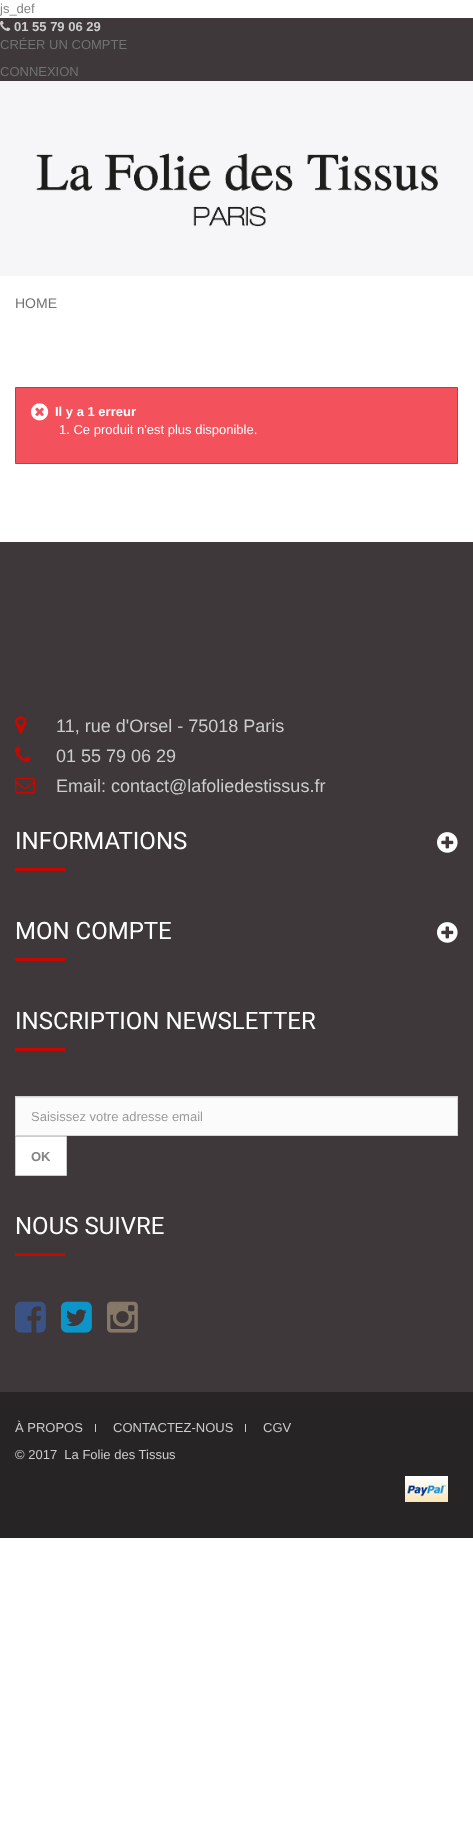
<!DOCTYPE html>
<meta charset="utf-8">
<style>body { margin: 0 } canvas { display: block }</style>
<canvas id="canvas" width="473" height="1835"></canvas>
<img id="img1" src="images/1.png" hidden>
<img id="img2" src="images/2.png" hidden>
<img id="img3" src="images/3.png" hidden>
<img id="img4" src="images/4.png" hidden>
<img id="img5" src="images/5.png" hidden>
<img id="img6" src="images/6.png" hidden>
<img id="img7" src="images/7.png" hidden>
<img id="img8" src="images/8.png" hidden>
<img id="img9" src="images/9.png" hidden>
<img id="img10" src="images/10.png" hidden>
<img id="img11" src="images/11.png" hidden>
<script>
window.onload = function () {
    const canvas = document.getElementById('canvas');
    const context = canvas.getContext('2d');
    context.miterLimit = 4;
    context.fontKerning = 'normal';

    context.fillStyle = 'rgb(255, 255, 255)';
    context.fillRect(0, 0, 473, 1835);
    context.fillStyle = 'rgb(246, 246, 248)';
    context.fillRect(0, 81, 473, 195);
    context.fillStyle = 'rgb(62, 56, 58)';
    context.fillRect(0, 18, 473, 63);
    context.drawImage(document.getElementById('img1'), 0, 20, 11, 11);
    context.drawImage(document.getElementById('img2'), 36, 153, 402, 74);
    context.fillStyle = 'rgb(243, 81, 92)';
    context.beginPath();
    context.rect(15.5, 387.5, 442, 76);
    context.fill();
    context.strokeStyle = 'rgb(212, 50, 61)';
    context.stroke();
    context.drawImage(document.getElementById('img3'), 31, 403, 18, 18);
    context.fillStyle = 'rgb(62, 56, 58)';
    context.fillRect(0, 542, 473, 850);
    context.drawImage(document.getElementById('img4'), 15, 716, 12, 18);
    context.drawImage(document.getElementById('img5'), 15, 746, 16, 16);
    context.drawImage(document.getElementById('img6'), 15, 777, 20, 17);
    context.drawImage(document.getElementById('img7'), 437, 832, 21, 21);
    context.fillStyle = 'rgb(198, 8, 0)';
    context.fillRect(15, 868, 50, 3);
    context.drawImage(document.getElementById('img7'), 437, 922, 21, 21);
    context.fillRect(15, 958, 50, 3);
    context.fillRect(15, 1048, 50, 3);
    context.fillStyle = 'rgb(251, 251, 251)';
    context.fillRect(16, 1098, 441, 37);
    context.fillStyle = 'rgb(232, 232, 232)';
    context.fillRect(16, 1097, 441, 1);
    context.strokeStyle = 'rgb(214, 212, 212)';
    context.strokeRect(15.5, 1096.5, 442, 39);
    context.fillStyle = 'rgb(255, 255, 255)';
    context.beginPath();
    context.rect(15.5, 1136.5, 51, 39);
    context.fill();
    context.strokeStyle = 'rgb(204, 204, 204)';
    context.stroke();
    context.fillStyle = 'rgb(198, 8, 0)';
    context.fillRect(15, 1253, 50, 3);
    context.drawImage(document.getElementById('img8'), 15, 1301, 31, 32);
    context.drawImage(document.getElementById('img9'), 61, 1301, 31, 32);
    context.drawImage(document.getElementById('img10'), 107, 1301, 31, 32);
    context.fillStyle = 'rgb(38, 36, 37)';
    context.fillRect(0, 1392, 473, 146);
    context.fillStyle = 'rgb(204, 204, 204)';
    context.fillRect(95, 1424, 1, 8);
    context.fillRect(245, 1424, 1, 8);
    context.drawImage(document.getElementById('img11'), 405, 1476, 43, 26);
    context.font = '13px Liberation Sans';
    context.fillStyle = 'rgb(132, 132, 132)';
    context.fillText('js_def', 0, 13);
    context.font = 'bold 13px Liberation Sans';
    context.fillStyle = 'rgb(204, 204, 204)';
    context.fillText('01 55 79 06 29', 14, 31);
    context.font = '13px Liberation Sans';
    context.fillStyle = 'rgb(114, 114, 114)';
    context.fillText('CRÉER UN COMPTE', 0, 49);
    context.fillText('CONNEXION', 0, 76);
    context.font = '14px Liberation Sans';
    context.fillText('HOME', 15, 308);
    context.font = 'bold 13px Liberation Sans';
    context.fillStyle = 'rgb(255, 255, 255)';
    context.fillText('Il y a 1 erreur', 55, 416);
    context.font = '13px Liberation Sans';
    context.fillText('1. Ce produit n\'est plus disponible.', 59, 434);
    context.font = '18px Liberation Sans';
    context.fillStyle = 'rgb(204, 204, 204)';
    context.fillText('11, rue d\'Orsel - 75018 Paris', 56, 732);
    context.fillText('01 55 79 06 29', 56, 762);
    context.fillText('Email: contact@lafoliedestissus.fr', 56, 792);
    context.font = '24px Roboto';
    context.fillStyle = 'rgb(255, 255, 255)';
    context.fillText('INFORMATIONS', 15, 849);
    context.fillText('MON COMPTE', 15, 939);
    context.fillText('INSCRIPTION NEWSLETTER', 15, 1029);
    context.font = '13px Liberation Sans';
    context.fillStyle = 'rgb(156, 155, 155)';
    context.fillText('Saisissez votre adresse email', 31, 1121);
    context.font = 'bold 13px Liberation Sans';
    context.fillStyle = 'rgb(132, 132, 132)';
    context.fillText('OK', 31, 1161);
    context.font = '24px Roboto';
    context.fillStyle = 'rgb(255, 255, 255)';
    context.fillText('NOUS SUIVRE', 15, 1234);
    context.font = '13px Liberation Sans';
    context.fillStyle = 'rgb(204, 204, 204)';
    context.fillText('À PROPOS', 15, 1432);
    context.fillText('CONTACTEZ-NOUS', 113, 1432);
    context.fillText('CGV', 263, 1432);
    context.fillText('© 2017  La Folie des Tissus', 15, 1459);
};
</script>
